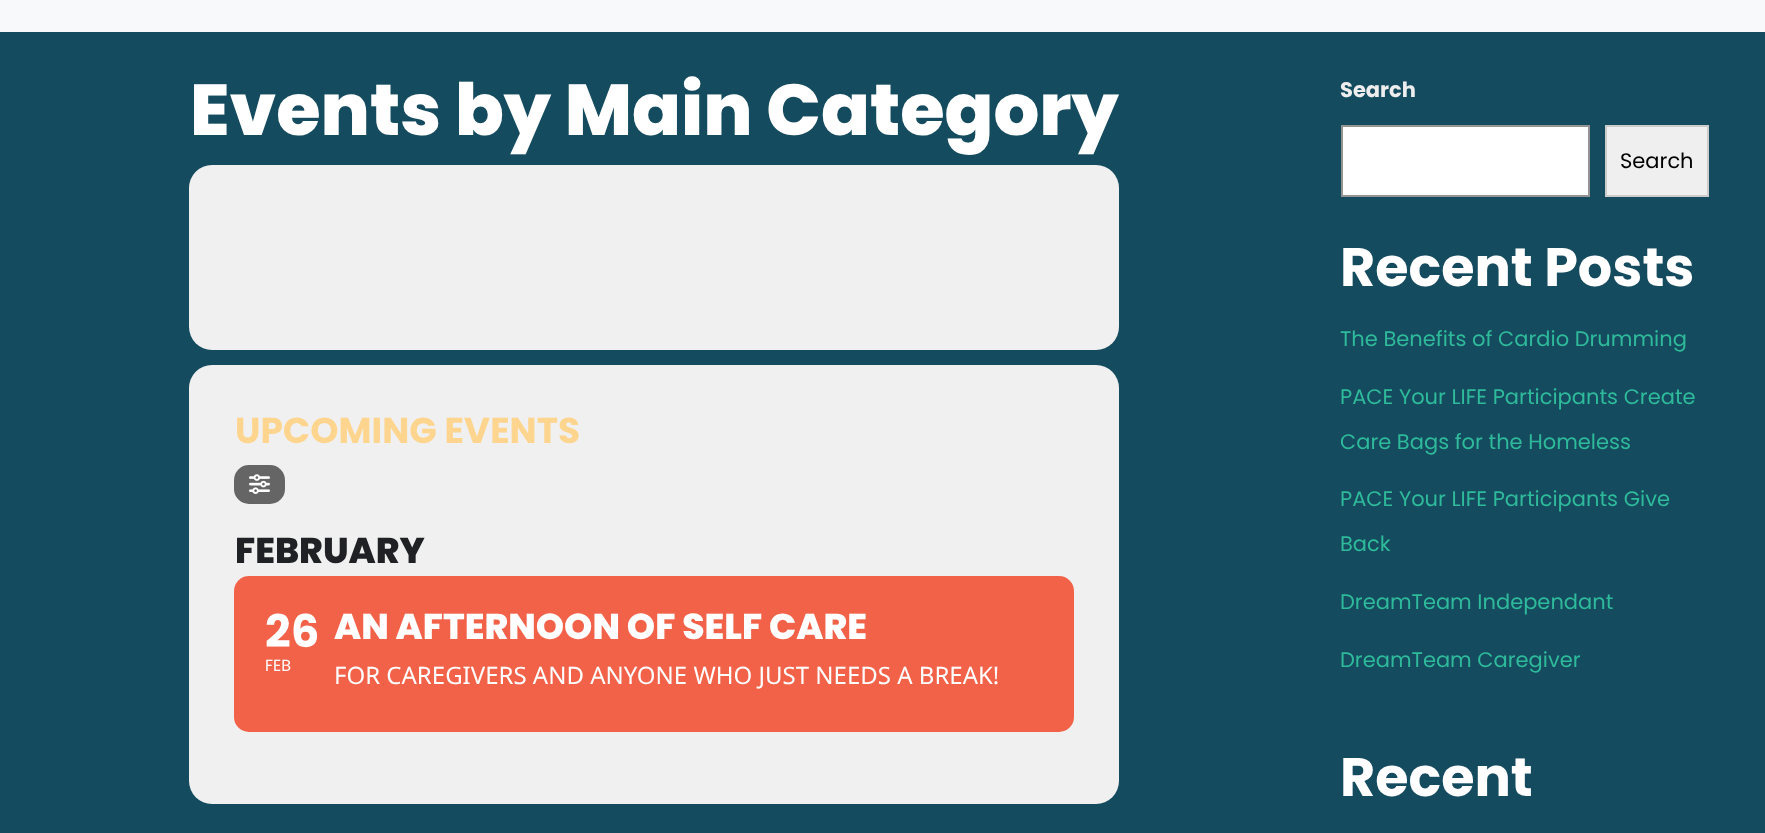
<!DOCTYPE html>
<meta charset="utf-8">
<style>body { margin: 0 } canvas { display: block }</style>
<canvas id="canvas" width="1765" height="833"></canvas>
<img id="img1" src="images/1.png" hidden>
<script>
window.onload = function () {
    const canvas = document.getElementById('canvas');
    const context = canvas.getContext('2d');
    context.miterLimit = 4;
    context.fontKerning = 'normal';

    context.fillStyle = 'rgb(21, 75, 94)';
    context.fillRect(0, 0, 1765, 833);
    context.fillStyle = 'rgb(248, 249, 250)';
    context.fillRect(0, 0, 1765, 32);
    context.fillStyle = 'rgb(240, 240, 240)';
    context.beginPath();
    context.roundRect(189, 165, 930, 185, 23);
    context.fill();
    context.beginPath();
    context.roundRect(189, 365, 930, 439, 23);
    context.fill();
    context.fillStyle = 'rgb(101, 101, 101)';
    context.beginPath();
    context.roundRect(234, 465, 51, 39, 15);
    context.fill();
    context.drawImage(document.getElementById('img1'), 249, 474, 21, 20);
    context.fillStyle = 'rgb(242, 98, 73)';
    context.beginPath();
    context.roundRect(234, 576, 840, 156, 15);
    context.fill();
    context.fillStyle = 'rgb(255, 255, 255)';
    context.beginPath();
    context.rect(1342, 126, 247, 70);
    context.fill();
    context.strokeStyle = 'rgb(148, 148, 148)';
    context.lineWidth = 2;
    context.stroke();
    context.fillStyle = 'rgb(239, 239, 239)';
    context.beginPath();
    context.rect(1606, 126, 102, 70);
    context.fill();
    context.strokeStyle = 'rgb(204, 204, 204)';
    context.stroke();
    context.font = '800 72px Poppins';
    context.fillStyle = 'rgb(255, 255, 255)';
    context.fillText('Events by Main Category', 190, 135);
    context.font = 'bold 36px Poppins';
    context.fillStyle = 'rgb(254, 213, 142)';
    context.fillText('UPCOMING EVENTS', 235, 443);
    context.font = '800 36px Poppins';
    context.fillStyle = 'rgb(32, 33, 36)';
    context.fillText('FEBRUARY', 235, 563);
    context.font = 'bold 45px Poppins';
    context.fillStyle = 'rgb(255, 255, 255)';
    context.fillText('26', 265, 647);
    context.font = '16px Poppins';
    context.fillText('FEB', 265, 671);
    context.font = '800 36px Poppins';
    context.fillText('AN AFTERNOON OF SELF CARE', 334, 639);
    context.font = '24px Noto Sans';
    context.fillText('FOR CAREGIVERS AND ANYONE WHO JUST NEEDS A BREAK!', 334, 684);
    context.font = 'bold 21px Poppins';
    context.fillStyle = 'rgb(238, 238, 238)';
    context.fillText('Search', 1340, 97);
    context.font = '21px Poppins';
    context.fillStyle = 'rgb(0, 0, 0)';
    context.fillText('Search', 1620, 168);
    context.font = 'bold 54px Poppins';
    context.fillStyle = 'rgb(255, 255, 255)';
    context.fillText('Recent Posts', 1340, 286);
    context.font = '21px Poppins';
    context.fillStyle = 'rgb(46, 186, 155)';
    context.fillText('The Benefits of Cardio Drumming', 1340, 346);
    context.fillText('PACE Your LIFE Participants Create', 1340, 404);
    context.fillText('Care Bags for the Homeless', 1340, 449);
    context.fillText('PACE Your LIFE Participants Give', 1340, 506);
    context.fillText('Back', 1340, 551);
    context.fillText('DreamTeam Independant', 1340, 609);
    context.fillText('DreamTeam Caregiver', 1340, 667);
    context.font = 'bold 54px Poppins';
    context.fillStyle = 'rgb(255, 255, 255)';
    context.fillText('Recent', 1340, 796);
};
</script>
